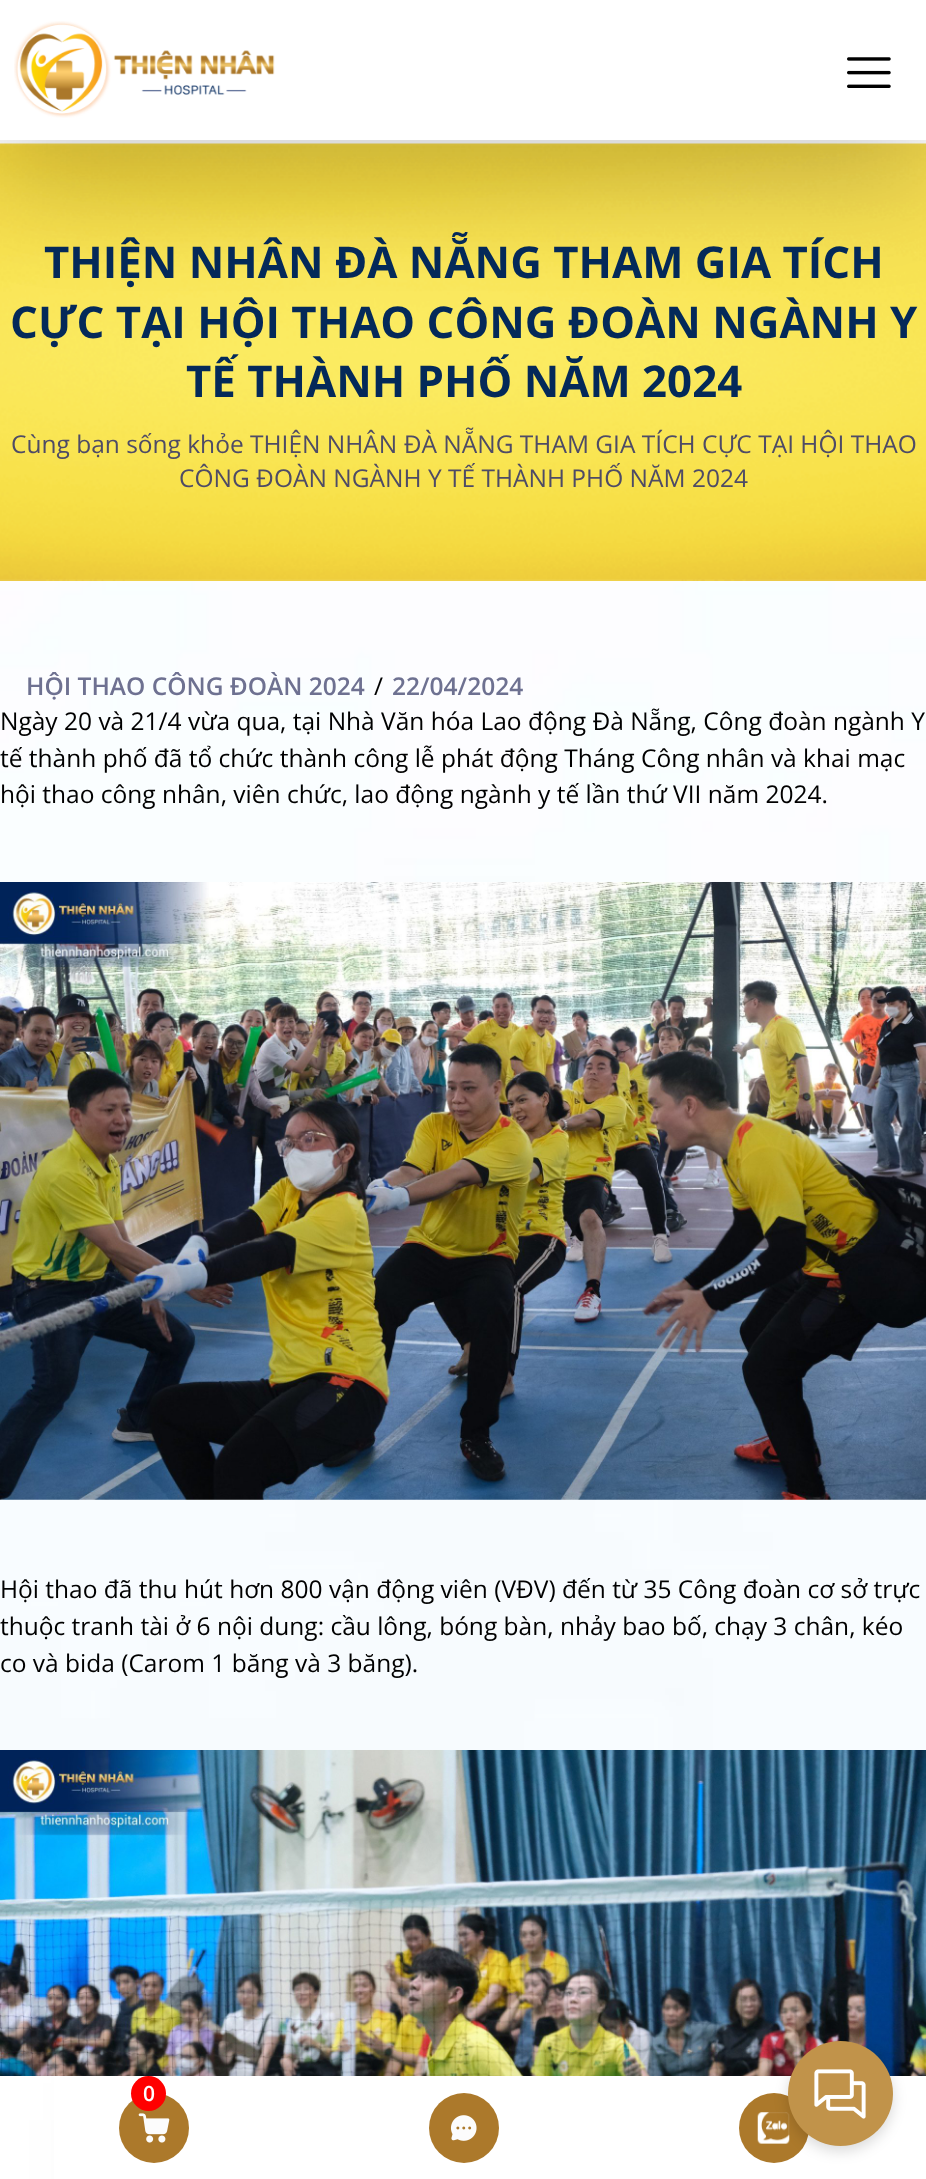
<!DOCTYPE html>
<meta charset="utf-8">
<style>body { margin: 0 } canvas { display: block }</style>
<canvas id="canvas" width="926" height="2179"></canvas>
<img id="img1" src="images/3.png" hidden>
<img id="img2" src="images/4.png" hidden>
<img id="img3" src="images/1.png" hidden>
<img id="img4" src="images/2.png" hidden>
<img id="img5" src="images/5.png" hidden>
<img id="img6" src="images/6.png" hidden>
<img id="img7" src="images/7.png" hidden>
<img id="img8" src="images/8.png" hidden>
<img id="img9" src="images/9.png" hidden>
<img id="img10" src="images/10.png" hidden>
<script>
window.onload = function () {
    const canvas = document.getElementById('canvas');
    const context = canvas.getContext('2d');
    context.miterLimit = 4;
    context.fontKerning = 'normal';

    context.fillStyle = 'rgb(255, 255, 255)';
    context.fillRect(0, 0, 926, 2179);
    context.drawImage(document.getElementById('img1'), 0, 579, 926, 1171);
    context.drawImage(document.getElementById('img2'), 0, 143, 926, 438);
    context.fillStyle = 'rgba(0, 0, 0, 0.18)';
    context.filter = 'blur(52.5px)';
    context.beginPath();
    context.rect(0, 42, 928, 140);
    context.fill();
    context.filter = 'none';
    context.fillStyle = 'rgb(255, 255, 255)';
    context.fillRect(0, 0, 926, 140);
    context.drawImage(document.getElementById('img3'), 14, 21, 261, 97);
    context.drawImage(document.getElementById('img4'), 847, 57, 44, 31);
    context.drawImage(document.getElementById('img5'), 0, 882, 926, 618);
    context.drawImage(document.getElementById('img6'), 0, 1750, 926, 326);
    context.fillStyle = 'rgba(0, 0, 0, 0.39)';
    context.filter = 'blur(52.5px)';
    context.beginPath();
    context.rect(147, 2118, 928, 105);
    context.fill();
    context.filter = 'none';
    context.fillStyle = 'rgb(255, 255, 255)';
    context.fillRect(54, 2076, 872, 103);
    context.fillStyle = 'rgb(172, 121, 43)';
    context.beginPath();
    context.arc(154, 2128, 35, 0, 2 * Math.PI);
    context.fill();
    context.fillStyle = 'rgb(255, 0, 0)';
    context.beginPath();
    context.arc(148.5, 2093.5, 17.5, 0, 2 * Math.PI);
    context.fill();
    context.drawImage(document.getElementById('img7'), 138, 2113, 32, 30);
    context.fillStyle = 'rgb(172, 121, 43)';
    context.beginPath();
    context.arc(464, 2128, 35, 0, 2 * Math.PI);
    context.fill();
    context.drawImage(document.getElementById('img8'), 450, 2115, 27, 26);
    context.beginPath();
    context.arc(774, 2128, 35, 0, 2 * Math.PI);
    context.fill();
    context.drawImage(document.getElementById('img9'), 757, 2112, 33, 32);
    context.fillStyle = 'rgba(0, 0, 0, 0.15)';
    context.filter = 'blur(7px)';
    context.beginPath();
    context.roundRect(788, 2046, 105, 105, 52.5);
    context.fill();
    context.filter = 'none';
    context.fillStyle = 'rgb(193, 147, 74)';
    context.beginPath();
    context.arc(840.5, 2093.5, 52.5, 0, 2 * Math.PI);
    context.fill();
    context.drawImage(document.getElementById('img10'), 814, 2069, 52, 50);
    context.font = 'bold 43.75px Open Sans';
    context.fillStyle = 'rgb(4, 41, 89)';
    context.fillText('THIỆN NHÂN ĐÀ NẴNG THAM GIA TÍCH', 44, 278);
    context.fillText('CỰC TẠI HỘI THAO CÔNG ĐOÀN NGÀNH Y', 10, 338);
    context.fillText('TẾ THÀNH PHỐ NĂM 2024', 186, 397);
    context.font = '24.5px Open Sans';
    context.fillStyle = 'rgb(78, 75, 102)';
    context.fillText('Cùng bạn sống khỏe THIỆN NHÂN ĐÀ NẴNG THAM GIA TÍCH CỰC TẠI HỘI THAO', 11, 453);
    context.fillText('CÔNG ĐOÀN NGÀNH Y TẾ THÀNH PHỐ NĂM 2024', 179, 487);
    context.font = '600 24.5px Open Sans';
    context.fillStyle = 'rgb(110, 113, 145)';
    context.fillText('HỘI THAO CÔNG ĐOÀN 2024', 26, 695);
    context.font = '24.5px Open Sans';
    context.fillStyle = 'rgb(0, 0, 0)';
    context.fillText('/', 374, 695);
    context.font = '600 24.5px Open Sans';
    context.fillStyle = 'rgb(110, 113, 145)';
    context.fillText('22/04/2024', 392, 695);
    context.font = '24.5px Open Sans';
    context.fillStyle = 'rgb(0, 0, 0)';
    context.fillText('Ngày 20 và 21/4 vừa qua, tại Nhà Văn hóa Lao động Đà Nẵng, Công đoàn ngành Y', 0, 730);
    context.fillText('tế thành phố đã tổ chức thành công lễ phát động Tháng Công nhân và khai mạc', 0, 767);
    context.fillText('hội thao công nhân, viên chức, lao động ngành y tế lần thứ VII năm 2024.', 0, 803);
    context.fillText('Hội thao đã thu hút hơn 800 vận động viên (VĐV) đến từ 35 Công đoàn cơ sở trực', 0, 1598);
    context.fillText('thuộc tranh tài ở 6 nội dung: cầu lông, bóng bàn, nhảy bao bố, chạy 3 chân, kéo', 0, 1635);
    context.fillText('co và bida (Carom 1 băng và 3 băng).', 0, 1672);
    context.font = '600 21px Open Sans';
    context.fillStyle = 'rgb(255, 255, 255)';
    context.fillText('0', 143, 2101);
};
</script>
